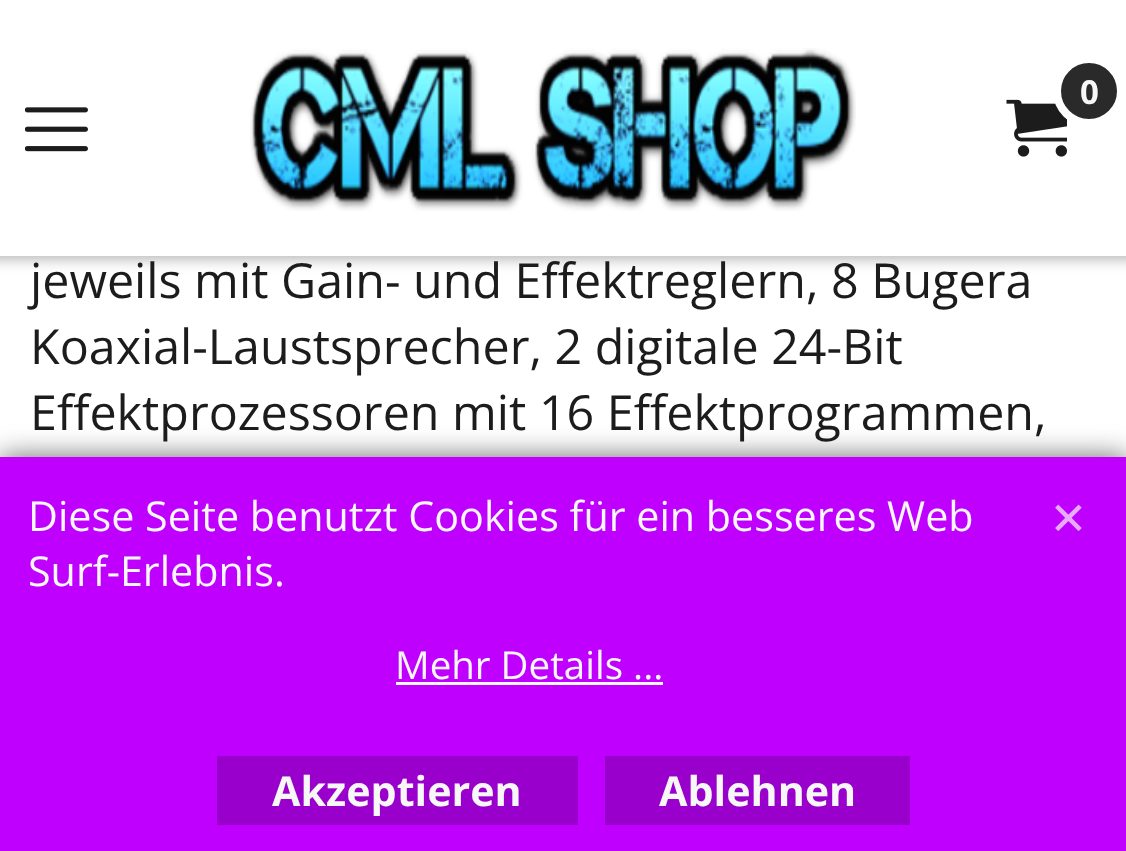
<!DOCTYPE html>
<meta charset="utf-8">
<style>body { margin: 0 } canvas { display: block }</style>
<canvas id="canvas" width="1126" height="851"></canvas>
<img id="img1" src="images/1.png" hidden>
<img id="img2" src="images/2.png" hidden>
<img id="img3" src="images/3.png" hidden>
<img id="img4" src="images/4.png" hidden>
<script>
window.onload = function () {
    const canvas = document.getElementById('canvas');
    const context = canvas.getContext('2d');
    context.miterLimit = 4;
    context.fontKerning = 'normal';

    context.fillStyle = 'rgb(255, 255, 255)';
    context.fillRect(0, 0, 1126, 851);
    context.fillStyle = 'rgba(0, 0, 0, 0.3)';
    context.filter = 'blur(7px)';
    context.beginPath();
    context.rect(-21, -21, 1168, 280);
    context.fill();
    context.filter = 'none';
    context.fillStyle = 'rgb(255, 255, 255)';
    context.fillRect(0, 0, 1126, 256);
    context.drawImage(document.getElementById('img1'), 250, 48, 606, 163);
    context.drawImage(document.getElementById('img2'), 1006, 99, 61, 58);
    context.fillStyle = 'rgb(42, 42, 42)';
    context.beginPath();
    context.arc(1089, 91, 32, 0, 2 * Math.PI);
    context.fill();
    context.strokeStyle = 'rgb(255, 255, 255)';
    context.lineWidth = 8;
    context.stroke();
    context.drawImage(document.getElementById('img3'), 25, 107, 63, 45);
    context.fillStyle = 'rgb(102, 102, 102)';
    context.filter = 'blur(14px)';
    context.beginPath();
    context.rect(0, 457, 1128, 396);
    context.fill();
    context.filter = 'none';
    context.fillStyle = 'rgb(191, 0, 255)';
    context.fillRect(0, 457, 1126, 394);
    context.fillStyle = 'rgb(247, 247, 247)';
    context.fillRect(396, 682, 267, 3);
    context.drawImage(document.getElementById('img4'), 1055, 504, 27, 27);
    context.fillStyle = 'rgb(153, 0, 204)';
    context.fillRect(217, 756, 361, 69);
    context.fillRect(605, 756, 305, 69);
    context.font = 'bold 33px Open Sans';
    context.fillStyle = 'rgb(247, 247, 247)';
    context.fillText('0', 1080, 104);
    context.font = '48.4px Open Sans';
    context.fillStyle = 'rgb(28, 28, 28)';
    context.fillText('jeweils mit Gain- und Effektreglern, 8 Bugera', 30, 298);
    context.fillText('Koaxial-Laustsprecher, 2 digitale 24-Bit', 30, 364);
    context.fillText('Effektprozessoren mit 16 Effektprogrammen,', 30, 430);
    context.font = '41.25px Open Sans';
    context.fillStyle = 'rgb(247, 247, 247)';
    context.fillText('Diese Seite benutzt Cookies für ein besseres Web', 28, 531);
    context.fillText('Surf-Erlebnis.', 28, 586);
    context.font = '38.5px Open Sans';
    context.fillText('Mehr Details ...', 395, 679);
    context.font = 'bold 41.25px Open Sans';
    context.fillText('Akzeptieren', 272, 806);
    context.fillText('Ablehnen', 659, 806);
};
</script>
